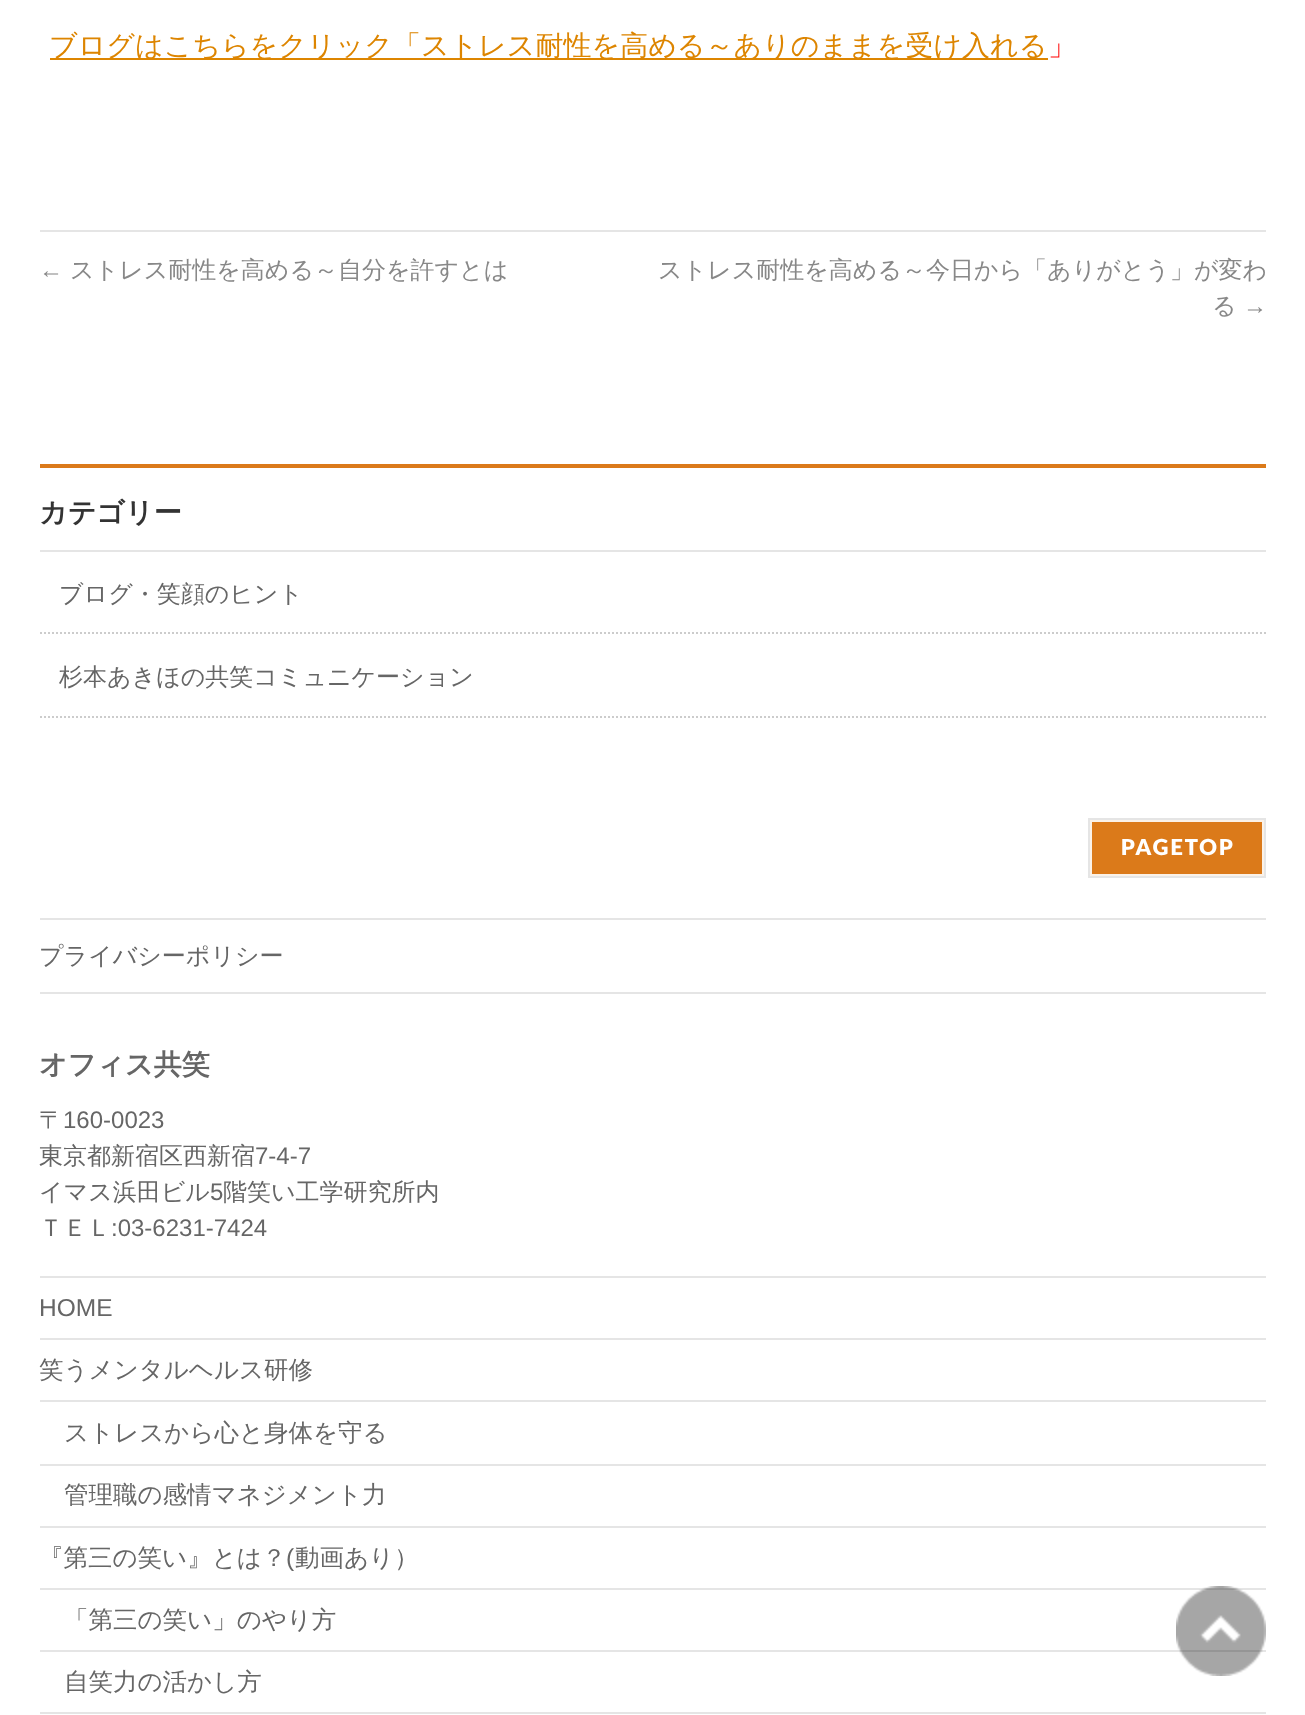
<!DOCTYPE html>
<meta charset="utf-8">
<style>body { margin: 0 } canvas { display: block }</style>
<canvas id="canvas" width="1305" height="1715"></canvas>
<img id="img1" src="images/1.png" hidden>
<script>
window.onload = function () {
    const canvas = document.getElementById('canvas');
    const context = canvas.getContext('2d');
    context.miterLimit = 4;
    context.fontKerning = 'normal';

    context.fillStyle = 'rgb(255, 255, 255)';
    context.fillRect(0, 0, 1305, 1715);
    context.fillStyle = 'rgb(221, 133, 0)';
    context.fillRect(50, 58, 998, 2);
    context.fillStyle = 'rgb(229, 229, 229)';
    context.fillRect(40, 230, 1226, 2);
    context.fillStyle = 'rgb(219, 122, 26)';
    context.fillRect(40, 464, 1226, 4);
    context.fillStyle = 'rgb(229, 229, 229)';
    context.fillRect(40, 550, 1226, 2);
    context.beginPath();
    context.moveTo(40, 633);
    context.lineTo(1266, 633);
    context.strokeStyle = 'rgb(204, 204, 204)';
    context.lineWidth = 2;
    context.setLineDash([2, 2]);
    context.stroke();
    context.beginPath();
    context.moveTo(40, 717);
    context.lineTo(1266, 717);
    context.stroke();
    context.fillStyle = 'rgb(219, 122, 26)';
    context.beginPath();
    context.rect(1091, 821, 172, 54);
    context.fill();
    context.strokeStyle = 'rgb(251, 242, 232)';
    context.setLineDash([]);
    context.stroke();
    context.strokeStyle = 'rgb(229, 229, 229)';
    context.strokeRect(1089, 819, 176, 58);
    context.fillStyle = 'rgb(229, 229, 229)';
    context.fillRect(40, 918, 1226, 2);
    context.fillRect(40, 992, 1226, 2);
    context.fillRect(40, 1276, 1226, 2);
    context.fillRect(40, 1338, 1226, 2);
    context.fillRect(40, 1400, 1226, 2);
    context.fillRect(40, 1464, 1226, 2);
    context.fillRect(40, 1526, 1226, 2);
    context.fillRect(40, 1588, 1226, 2);
    context.fillRect(40, 1650, 1226, 2);
    context.fillRect(40, 1712, 1226, 2);
    context.drawImage(document.getElementById('img1'), 1176, 1586, 90, 90);
    context.font = '500 28px WenQuanYi Zen Hei';
    context.fillStyle = 'rgb(221, 133, 0)';
    context.fillText('ブログはこちらをクリック「ストレス耐性を高める～ありのままを受け入れる', 49, 55);
    context.fillStyle = 'rgb(255, 0, 0)';
    context.fillText('」', 1048, 55);
    context.font = '24px Liberation Sans';
    context.fillStyle = 'rgb(136, 136, 136)';
    context.fillText('←', 39, 278);
    context.font = '500 24px WenQuanYi Zen Hei';
    context.fillText('ストレス耐性を高める～自分を許すとは', 70, 278);
    context.fillText('ストレス耐性を高める～今日から「ありがとう」が変わ', 658, 278);
    context.fillText('る', 1212, 314);
    context.font = '24px Liberation Sans';
    context.fillText('→', 1243, 314);
    context.font = 'bold 28px WenQuanYi Zen Hei';
    context.fillStyle = 'rgb(51, 51, 51)';
    context.fillText('カテゴリー', 39, 522);
    context.font = '500 24px WenQuanYi Zen Hei';
    context.fillStyle = 'rgb(102, 102, 102)';
    context.fillText('ブログ・笑顔のヒント', 59, 602);
    context.fillText('杉本あきほの共笑コミュニケーション', 59, 685);
    context.letterSpacing = '2px';
    context.font = '900 22px Lato';
    context.fillStyle = 'rgb(255, 255, 255)';
    context.fillText('PAGETOP', 1121, 855);
    context.letterSpacing = '0px';
    context.font = '500 24px WenQuanYi Zen Hei';
    context.fillStyle = 'rgb(102, 102, 102)';
    context.fillText('プライバシーポリシー', 39, 964);
    context.font = 'bold 28px WenQuanYi Zen Hei';
    context.fillText('オフィス共笑', 39, 1074);
    context.font = '500 24px WenQuanYi Zen Hei';
    context.fillText('〒', 39, 1128);
    context.font = '24px Liberation Sans';
    context.fillText('160-0023', 63, 1128);
    context.font = '500 24px WenQuanYi Zen Hei';
    context.fillText('東京都新宿区西新宿', 39, 1164);
    context.font = '24px Liberation Sans';
    context.fillText('7-4-7', 255, 1164);
    context.font = '500 24px WenQuanYi Zen Hei';
    context.fillText('イマス浜田ビル', 39, 1200);
    context.font = '24px Liberation Sans';
    context.fillText('5', 210, 1200);
    context.font = '500 24px WenQuanYi Zen Hei';
    context.fillText('階笑い工学研究所内', 223, 1200);
    context.fillText('ＴＥＬ', 39, 1236);
    context.font = '24px Liberation Sans';
    context.fillText(':03-6231-7424', 111, 1236);
    context.font = '24.5px Liberation Sans';
    context.fillText('HOME', 39, 1316);
    context.font = '500 24.5px WenQuanYi Zen Hei';
    context.fillText('笑うメンタルヘルス研修', 39, 1378);
    context.fillText('ストレスから心と身体を守る', 64, 1441);
    context.fillText('管理職の感情マネジメント力', 64, 1503);
    context.fillText('『第三の笑い』とは？', 39, 1566);
    context.font = '24.5px Liberation Sans';
    context.fillText('(', 286, 1566);
    context.font = '500 24.5px WenQuanYi Zen Hei';
    context.fillText('動画あり）', 295, 1566);
    context.fillText('「第三の笑い」のやり方', 64, 1628);
    context.fillText('自笑力の活かし方', 64, 1690);
};
</script>
